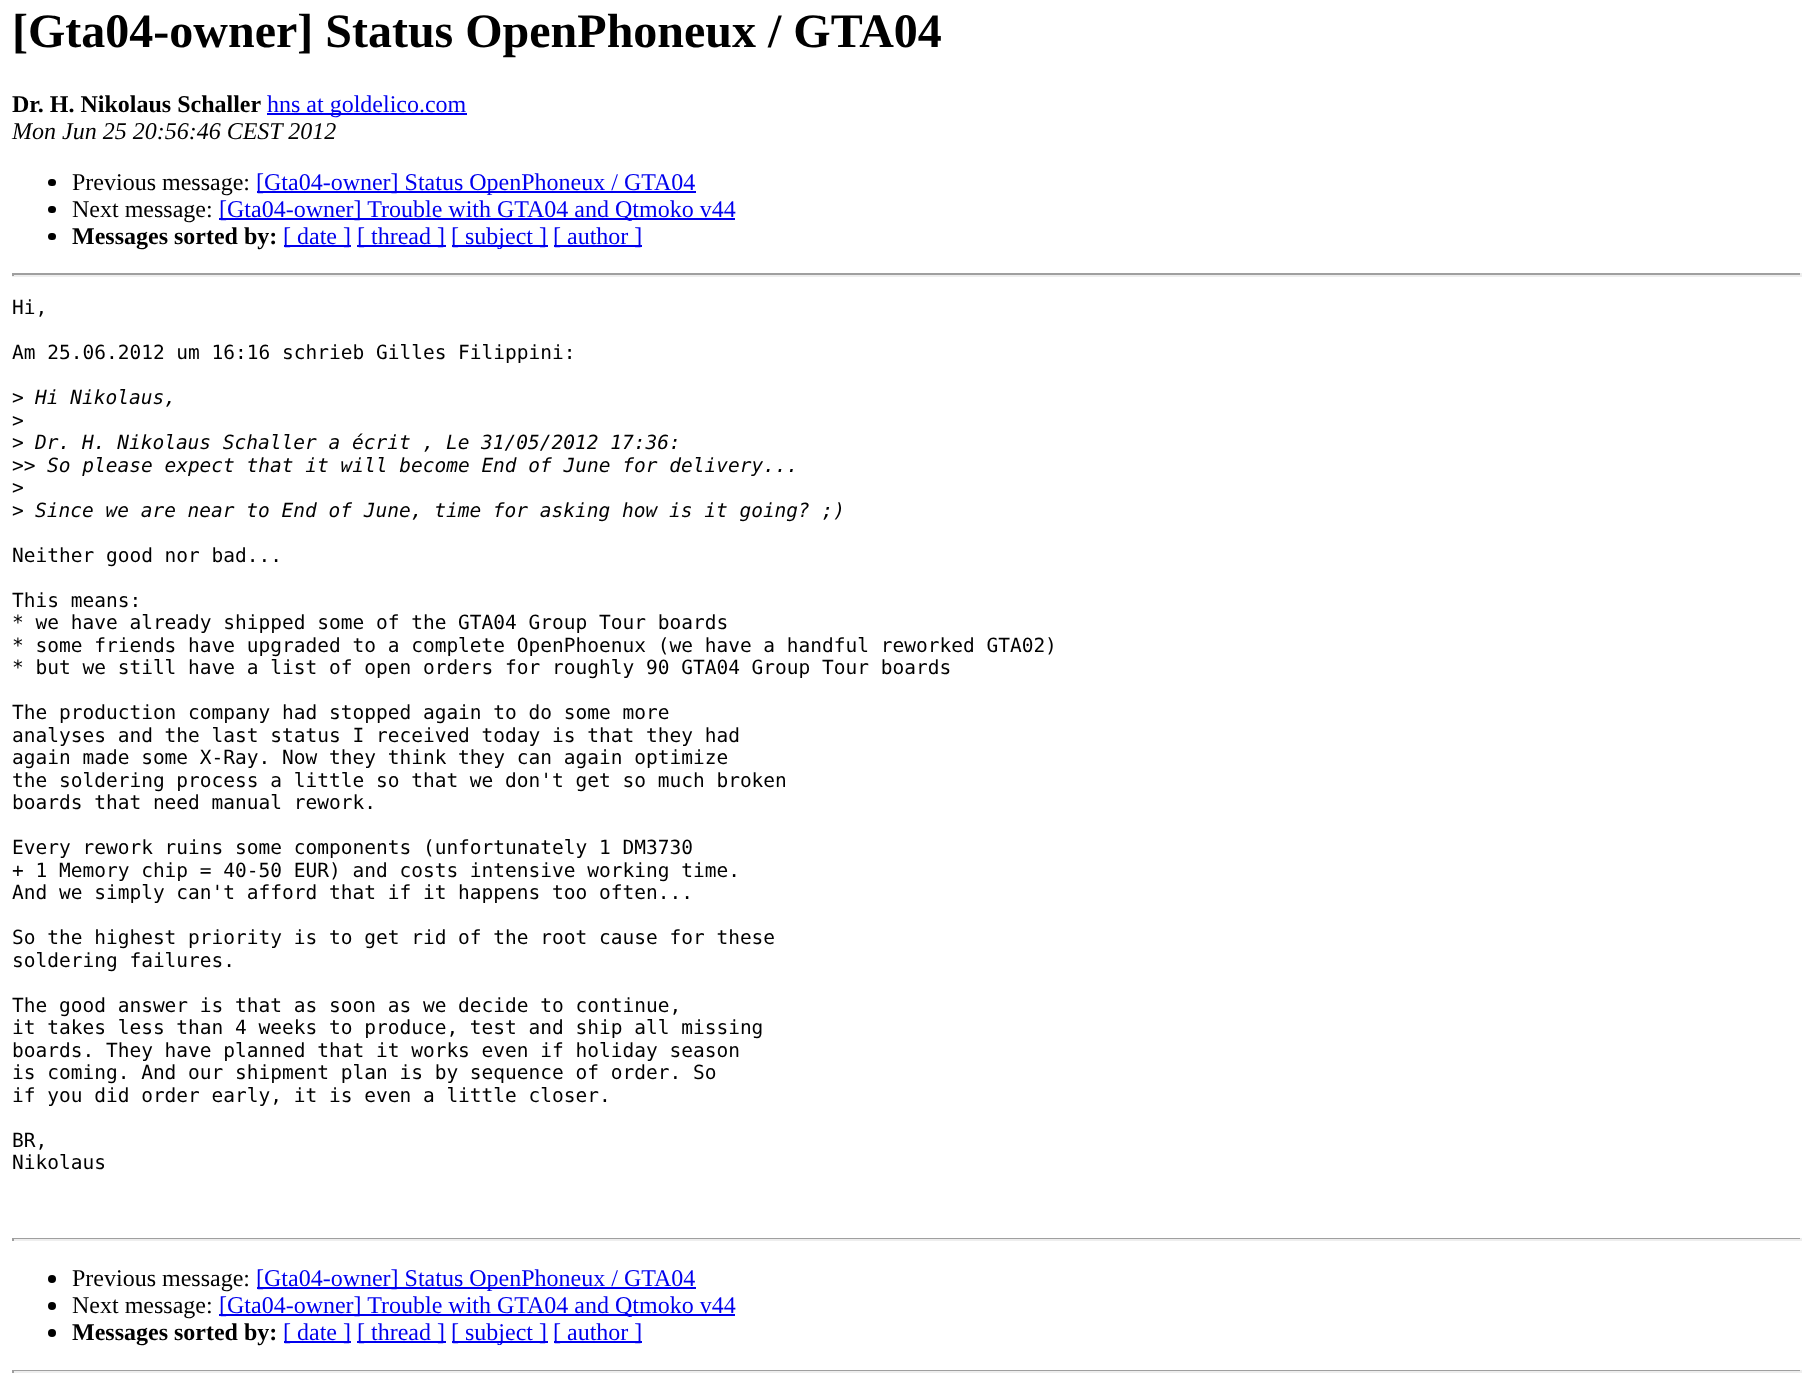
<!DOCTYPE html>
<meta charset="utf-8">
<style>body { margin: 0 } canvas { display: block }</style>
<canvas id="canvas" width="1813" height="1390"></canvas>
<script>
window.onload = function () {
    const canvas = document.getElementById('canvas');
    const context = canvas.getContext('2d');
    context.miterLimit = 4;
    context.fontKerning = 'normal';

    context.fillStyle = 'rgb(255, 255, 255)';
    context.fillRect(0, 0, 1813, 1390);
    context.fillStyle = 'rgb(0, 0, 238)';
    context.fillRect(267, 113, 200, 2);
    context.fillStyle = 'rgb(0, 0, 0)';
    context.beginPath();
    context.roundRect(48, 179, 8, 7, 3.5);
    context.fill();
    context.fillStyle = 'rgb(0, 0, 238)';
    context.fillRect(257, 191, 439, 2);
    context.fillStyle = 'rgb(0, 0, 0)';
    context.beginPath();
    context.roundRect(48, 206, 8, 7, 3.5);
    context.fill();
    context.fillStyle = 'rgb(0, 0, 238)';
    context.fillRect(219, 218, 516, 2);
    context.fillStyle = 'rgb(0, 0, 0)';
    context.beginPath();
    context.roundRect(48, 233, 8, 7, 3.5);
    context.fill();
    context.fillStyle = 'rgb(0, 0, 238)';
    context.fillRect(284, 245, 67, 2);
    context.fillRect(357, 245, 89, 2);
    context.fillRect(452, 245, 96, 2);
    context.fillRect(554, 245, 88, 2);
    context.fillStyle = 'rgb(159, 159, 159)';
    context.fillRect(12, 273, 1790, 2);
    context.fillStyle = 'rgb(238, 238, 238)';
    context.fillRect(1800, 273, 2, 3);
    context.fillRect(12, 275, 1790, 2);
    context.fillStyle = 'rgb(159, 159, 159)';
    context.fillRect(12, 273, 2, 3);
    context.fillRect(12, 1238, 1790, 1);
    context.fillStyle = 'rgb(238, 238, 238)';
    context.fillRect(1800, 1238, 2, 3);
    context.fillRect(12, 1239, 1790, 2);
    context.fillStyle = 'rgb(159, 159, 159)';
    context.fillRect(12, 1238, 2, 3);
    context.fillStyle = 'rgb(0, 0, 0)';
    context.beginPath();
    context.arc(52, 1279, 4, 0, 2 * Math.PI);
    context.fill();
    context.fillStyle = 'rgb(0, 0, 238)';
    context.fillRect(257, 1287, 439, 2);
    context.fillStyle = 'rgb(0, 0, 0)';
    context.beginPath();
    context.arc(52, 1306, 4, 0, 2 * Math.PI);
    context.fill();
    context.fillStyle = 'rgb(0, 0, 238)';
    context.fillRect(219, 1314, 516, 2);
    context.fillStyle = 'rgb(0, 0, 0)';
    context.beginPath();
    context.arc(52, 1333, 4, 0, 2 * Math.PI);
    context.fill();
    context.fillStyle = 'rgb(0, 0, 238)';
    context.fillRect(284, 1341, 67, 2);
    context.fillRect(357, 1341, 89, 2);
    context.fillRect(452, 1341, 96, 2);
    context.fillRect(554, 1341, 88, 2);
    context.fillStyle = 'rgb(159, 159, 159)';
    context.fillRect(12, 1370, 1790, 1);
    context.fillStyle = 'rgb(238, 238, 238)';
    context.fillRect(1800, 1370, 2, 3);
    context.fillRect(12, 1371, 1790, 2);
    context.fillStyle = 'rgb(159, 159, 159)';
    context.fillRect(12, 1370, 2, 3);
    context.font = 'bold 48px Liberation Serif';
    context.fillStyle = 'rgb(0, 0, 0)';
    context.fillText('[Gta04-owner] Status OpenPhoneux / GTA04', 12, 47);
    context.font = 'bold 24px Liberation Serif';
    context.fillText('Dr. H. Nikolaus Schaller', 12, 112);
    context.font = '24px Liberation Serif';
    context.fillStyle = 'rgb(0, 0, 238)';
    context.fillText('hns at goldelico.com', 267, 112);
    context.font = 'italic 24px Liberation Serif';
    context.fillStyle = 'rgb(0, 0, 0)';
    context.fillText('Mon Jun 25 20:56:46 CEST 2012', 12, 139);
    context.font = '24px Liberation Serif';
    context.fillText('Previous message:', 72, 190);
    context.fillStyle = 'rgb(0, 0, 238)';
    context.fillText('[Gta04-owner] Status OpenPhoneux / GTA04', 256, 190);
    context.fillStyle = 'rgb(0, 0, 0)';
    context.fillText('Next message:', 72, 217);
    context.fillStyle = 'rgb(0, 0, 238)';
    context.fillText('[Gta04-owner] Trouble with GTA04 and Qtmoko v44', 219, 217);
    context.font = 'bold 24px Liberation Serif';
    context.fillStyle = 'rgb(0, 0, 0)';
    context.fillText('Messages sorted by:', 72, 244);
    context.font = '24px Liberation Serif';
    context.fillStyle = 'rgb(0, 0, 238)';
    context.fillText('[ date ]', 283, 244);
    context.fillText('[ thread ]', 357, 244);
    context.fillText('[ subject ]', 451, 244);
    context.fillText('[ author ]', 553, 244);
    context.font = '19.5px DejaVu Sans Mono';
    context.fillStyle = 'rgb(0, 0, 0)';
    context.fillText('Hi,', 12, 314);
    context.fillText('Am 25.06.2012 um 16:16 schrieb Gilles Filippini:', 12, 359);
    context.fillText('>', 12, 404);
    context.font = 'italic 19.5px DejaVu Sans Mono';
    context.fillText('Hi Nikolaus,', 35, 404);
    context.font = '19.5px DejaVu Sans Mono';
    context.fillText('>', 12, 427);
    context.fillText('>', 12, 449);
    context.font = 'italic 19.5px DejaVu Sans Mono';
    context.fillText('Dr. H. Nikolaus Schaller a écrit , Le 31/05/2012 17:36:', 35, 449);
    context.font = '19.5px DejaVu Sans Mono';
    context.fillText('>>', 12, 472);
    context.font = 'italic 19.5px DejaVu Sans Mono';
    context.fillText('So please expect that it will become End of June for delivery...', 47, 472);
    context.font = '19.5px DejaVu Sans Mono';
    context.fillText('>', 12, 494);
    context.fillText('>', 12, 517);
    context.font = 'italic 19.5px DejaVu Sans Mono';
    context.fillText('Since we are near to End of June, time for asking how is it going? ;)', 35, 517);
    context.font = '19.5px DejaVu Sans Mono';
    context.fillText('Neither good nor bad...', 12, 562);
    context.fillText('This means:', 12, 607);
    context.fillText('* we have already shipped some of the GTA04 Group Tour boards', 12, 629);
    context.fillText('* some friends have upgraded to a complete OpenPhoenux (we have a handful reworked GTA02)', 12, 652);
    context.fillText('* but we still have a list of open orders for roughly 90 GTA04 Group Tour boards', 12, 674);
    context.fillText('The production company had stopped again to do some more', 12, 719);
    context.fillText('analyses and the last status I received today is that they had', 12, 742);
    context.fillText('again made some X-Ray. Now they think they can again optimize', 12, 764);
    context.fillText('the soldering process a little so that we don\'t get so much broken', 12, 787);
    context.fillText('boards that need manual rework.', 12, 809);
    context.fillText('Every rework ruins some components (unfortunately 1 DM3730', 12, 854);
    context.fillText('+ 1 Memory chip = 40-50 EUR) and costs intensive working time.', 12, 877);
    context.fillText('And we simply can\'t afford that if it happens too often...', 12, 899);
    context.fillText('So the highest priority is to get rid of the root cause for these', 12, 944);
    context.fillText('soldering failures.', 12, 967);
    context.fillText('The good answer is that as soon as we decide to continue,', 12, 1012);
    context.fillText('it takes less than 4 weeks to produce, test and ship all missing', 12, 1034);
    context.fillText('boards. They have planned that it works even if holiday season', 12, 1057);
    context.fillText('is coming. And our shipment plan is by sequence of order. So', 12, 1079);
    context.fillText('if you did order early, it is even a little closer.', 12, 1102);
    context.fillText('BR,', 12, 1147);
    context.fillText('Nikolaus', 12, 1169);
    context.font = '24px Liberation Serif';
    context.fillText('Previous message:', 72, 1286);
    context.fillStyle = 'rgb(0, 0, 238)';
    context.fillText('[Gta04-owner] Status OpenPhoneux / GTA04', 256, 1286);
    context.fillStyle = 'rgb(0, 0, 0)';
    context.fillText('Next message:', 72, 1313);
    context.fillStyle = 'rgb(0, 0, 238)';
    context.fillText('[Gta04-owner] Trouble with GTA04 and Qtmoko v44', 219, 1313);
    context.font = 'bold 24px Liberation Serif';
    context.fillStyle = 'rgb(0, 0, 0)';
    context.fillText('Messages sorted by:', 72, 1340);
    context.font = '24px Liberation Serif';
    context.fillStyle = 'rgb(0, 0, 238)';
    context.fillText('[ date ]', 283, 1340);
    context.fillText('[ thread ]', 357, 1340);
    context.fillText('[ subject ]', 451, 1340);
    context.fillText('[ author ]', 553, 1340);
};
</script>
